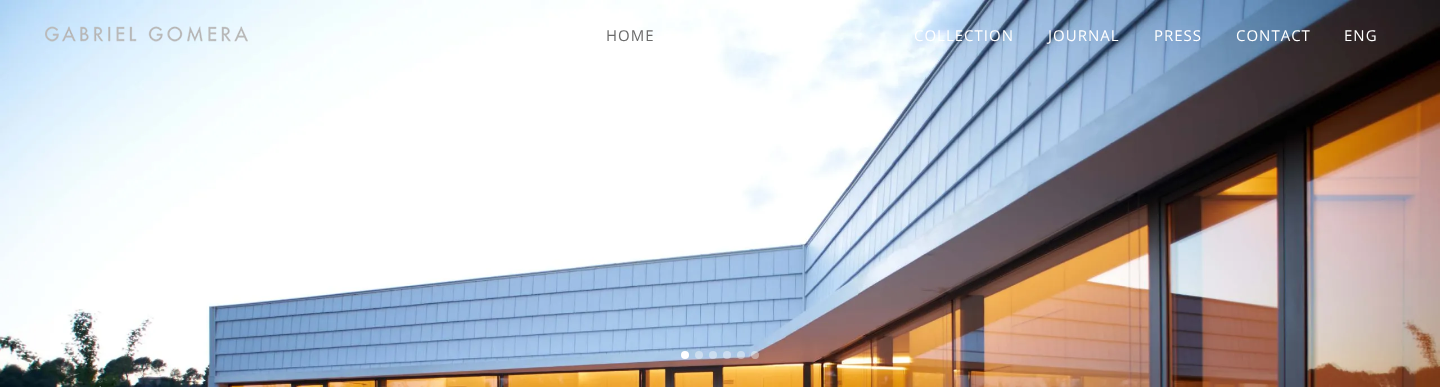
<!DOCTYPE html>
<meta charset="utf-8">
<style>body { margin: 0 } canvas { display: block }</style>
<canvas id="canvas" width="1440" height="387"></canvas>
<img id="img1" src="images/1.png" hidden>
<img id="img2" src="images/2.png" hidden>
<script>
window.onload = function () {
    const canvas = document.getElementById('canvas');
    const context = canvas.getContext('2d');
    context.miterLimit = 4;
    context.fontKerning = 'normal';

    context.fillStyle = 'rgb(255, 255, 255)';
    context.fillRect(0, 0, 1440, 387);
    context.drawImage(document.getElementById('img1'), 0, 0, 1440, 387);
    context.beginPath();
    context.arc(685, 355, 4, 0, 2 * Math.PI);
    context.fill();
    context.fillStyle = 'rgba(255, 255, 255, 0.4)';
    context.beginPath();
    context.arc(699, 355, 4, 0, 2 * Math.PI);
    context.fill();
    context.beginPath();
    context.arc(713, 355, 4, 0, 2 * Math.PI);
    context.fill();
    context.beginPath();
    context.arc(727, 355, 4, 0, 2 * Math.PI);
    context.fill();
    context.beginPath();
    context.arc(741, 355, 4, 0, 2 * Math.PI);
    context.fill();
    context.beginPath();
    context.arc(755, 355, 4, 0, 2 * Math.PI);
    context.fill();
    context.drawImage(document.getElementById('img2'), 45, 26, 203, 16);
    context.letterSpacing = '1px';
    context.font = '15px Open Sans';
    context.fillStyle = 'rgb(107, 107, 107)';
    context.fillText('HOME', 606, 41);
    context.fillStyle = 'rgb(255, 255, 255)';
    context.fillText('COLLECTION', 914, 41);
    context.fillText('JOURNAL', 1048, 41);
    context.fillText('PRESS', 1154, 41);
    context.fillText('CONTACT', 1236, 41);
    context.fillText('ENG', 1344, 41);
};
</script>
